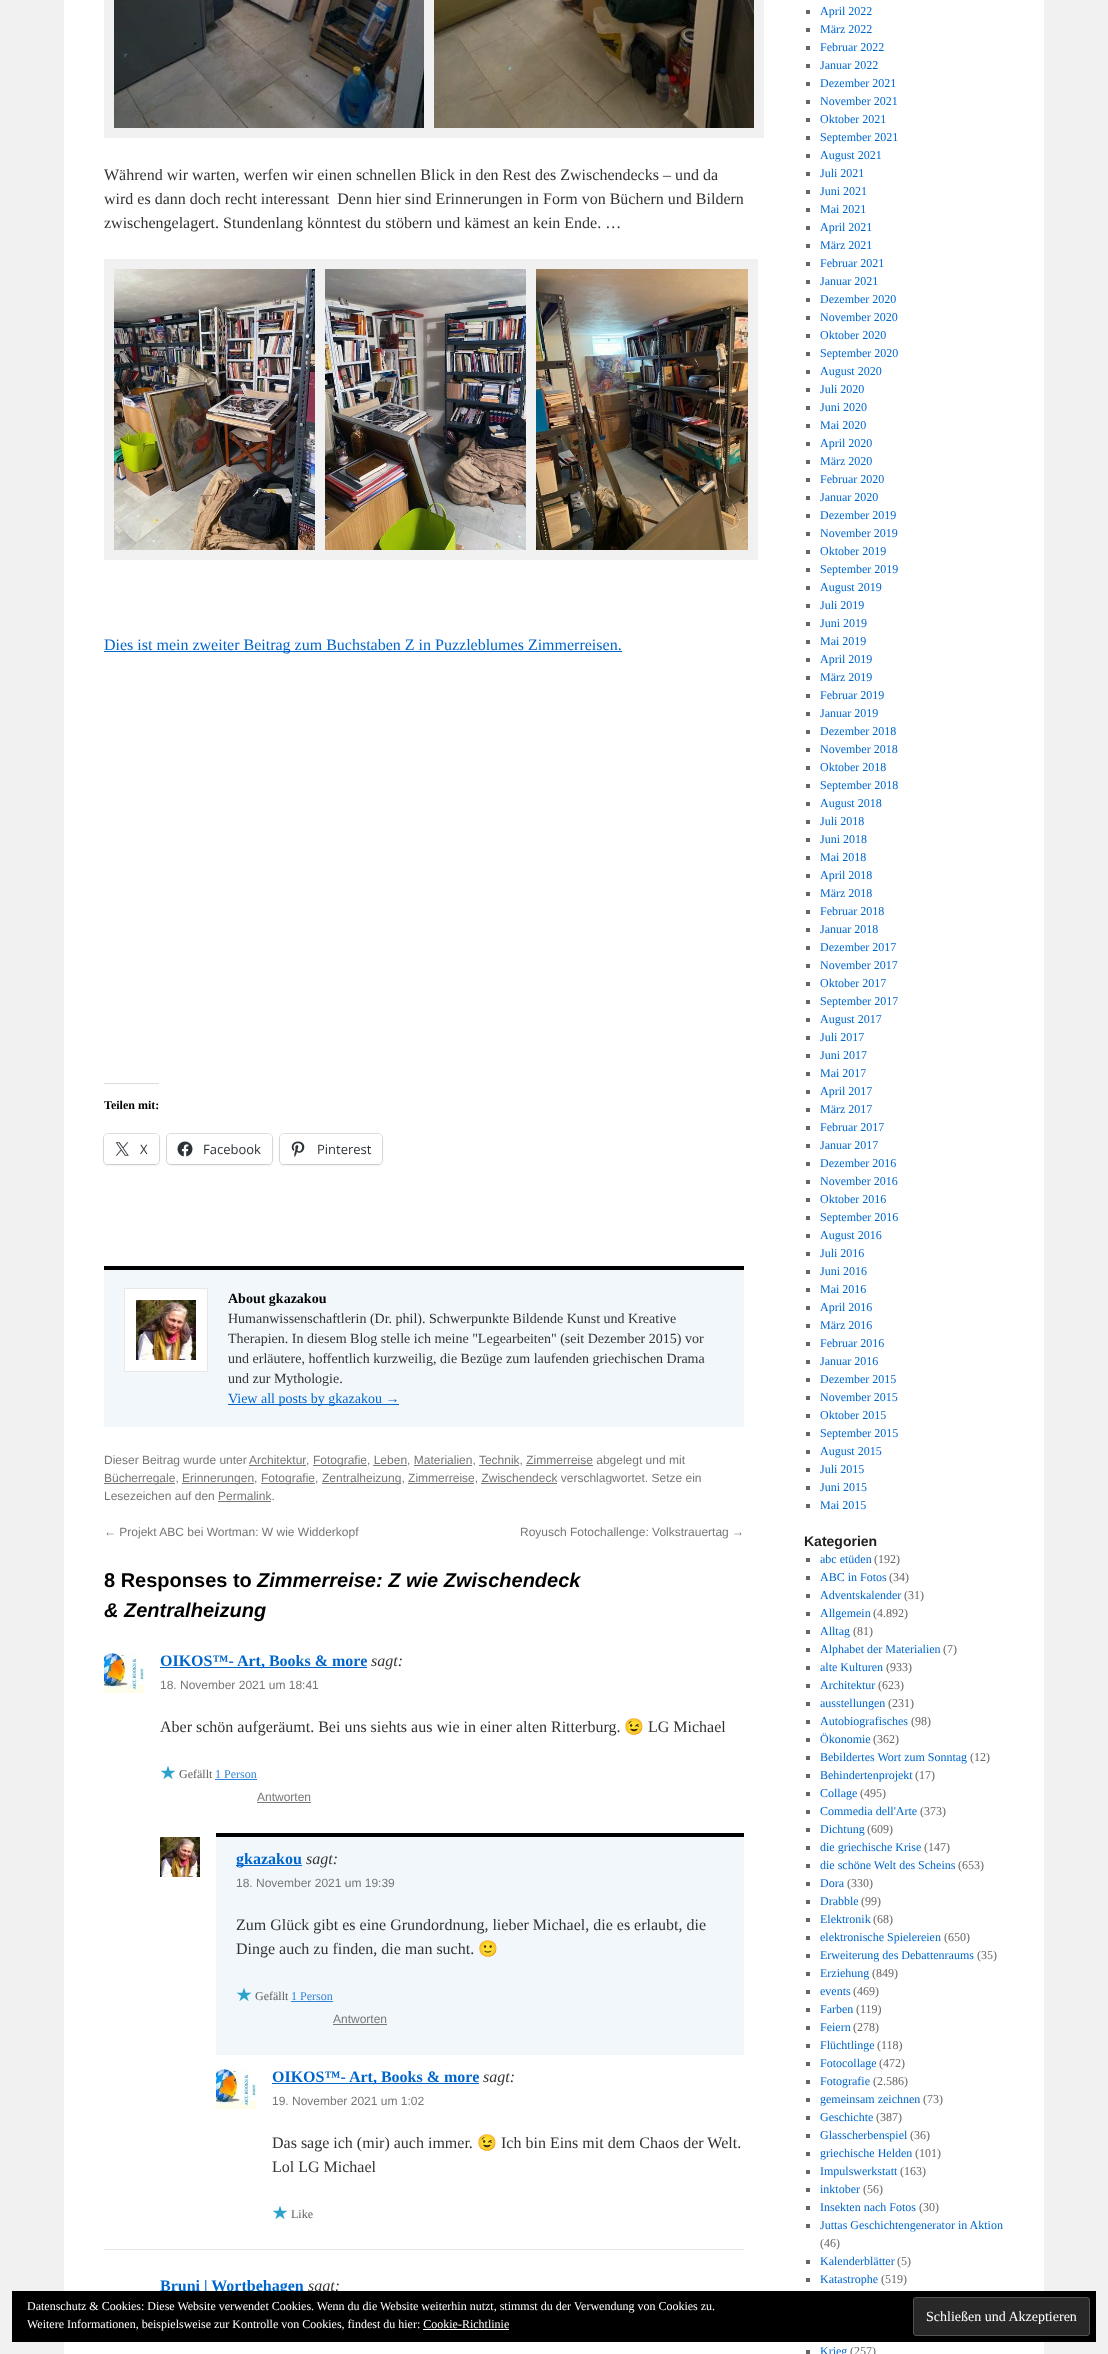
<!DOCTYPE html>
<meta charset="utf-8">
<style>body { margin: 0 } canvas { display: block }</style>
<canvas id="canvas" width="1108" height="2354"></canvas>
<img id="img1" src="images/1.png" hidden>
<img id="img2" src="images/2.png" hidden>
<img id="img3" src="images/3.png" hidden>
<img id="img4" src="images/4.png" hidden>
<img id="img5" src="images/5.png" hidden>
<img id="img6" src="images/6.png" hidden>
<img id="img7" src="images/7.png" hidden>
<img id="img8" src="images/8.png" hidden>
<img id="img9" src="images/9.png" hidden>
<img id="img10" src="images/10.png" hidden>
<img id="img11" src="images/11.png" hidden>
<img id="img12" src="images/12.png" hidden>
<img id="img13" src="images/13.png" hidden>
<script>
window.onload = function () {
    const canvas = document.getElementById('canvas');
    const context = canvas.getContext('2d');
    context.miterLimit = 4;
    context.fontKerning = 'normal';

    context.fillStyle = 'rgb(241, 241, 241)';
    context.fillRect(0, 0, 1108, 2354);
    context.fillStyle = 'rgb(255, 255, 255)';
    context.fillRect(64, 0, 980, 2354);
    context.strokeStyle = 'rgb(241, 241, 241)';
    context.lineWidth = 10;
    context.strokeRect(109, -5, 330, 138);
    context.drawImage(document.getElementById('img1'), 114, 0, 310, 128);
    context.strokeRect(429, -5, 330, 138);
    context.drawImage(document.getElementById('img2'), 434, 0, 320, 128);
    context.strokeRect(109, 264, 221, 291);
    context.drawImage(document.getElementById('img3'), 114, 269, 201, 281);
    context.strokeRect(320, 264, 221, 291);
    context.drawImage(document.getElementById('img4'), 325, 269, 201, 281);
    context.strokeRect(531, 264, 222, 291);
    context.drawImage(document.getElementById('img5'), 536, 269, 212, 281);
    context.fillStyle = 'rgb(0, 102, 204)';
    context.fillRect(104, 651, 518, 1);
    context.fillStyle = 'rgb(220, 220, 222)';
    context.fillRect(104, 1083, 55, 1);
    context.beginPath();
    context.roundRect(103.5, 1133.5, 56, 31, 4.5);
    context.strokeStyle = 'rgb(224, 224, 224)';
    context.lineWidth = 1;
    context.stroke();
    context.fillStyle = 'rgba(0, 0, 0, 0.12)';
    context.filter = 'blur(1px)';
    context.beginPath();
    context.roundRect(104, 1135, 55, 30, 4);
    context.fill();
    context.filter = 'none';
    context.fillStyle = 'rgb(255, 255, 255)';
    context.beginPath();
    context.roundRect(104, 1134, 55, 30, 4);
    context.fill();
    context.drawImage(document.getElementById('img6'), 115, 1142, 14, 14);
    context.beginPath();
    context.roundRect(166.5, 1133.5, 106, 31, 4.5);
    context.stroke();
    context.fillStyle = 'rgba(0, 0, 0, 0.12)';
    context.filter = 'blur(1px)';
    context.beginPath();
    context.roundRect(167, 1135, 105, 30, 4);
    context.fill();
    context.filter = 'none';
    context.fillStyle = 'rgb(255, 255, 255)';
    context.beginPath();
    context.roundRect(167, 1134, 105, 30, 4);
    context.fill();
    context.drawImage(document.getElementById('img7'), 177, 1141, 16, 16);
    context.beginPath();
    context.roundRect(279.5, 1133.5, 103, 31, 4.5);
    context.stroke();
    context.fillStyle = 'rgba(0, 0, 0, 0.12)';
    context.filter = 'blur(1px)';
    context.beginPath();
    context.roundRect(280, 1135, 102, 30, 4);
    context.fill();
    context.filter = 'none';
    context.fillStyle = 'rgb(255, 255, 255)';
    context.beginPath();
    context.roundRect(280, 1134, 102, 30, 4);
    context.fill();
    context.drawImage(document.getElementById('img8'), 291, 1141, 14, 16);
    context.fillStyle = 'rgb(242, 247, 252)';
    context.fillRect(104, 1270, 640, 157);
    context.fillStyle = 'rgb(0, 0, 0)';
    context.fillRect(104, 1266, 640, 4);
    context.fillStyle = 'rgb(255, 255, 255)';
    context.beginPath();
    context.rect(124.5, 1288.5, 83, 83);
    context.fill();
    context.strokeStyle = 'rgb(231, 231, 231)';
    context.stroke();
    context.drawImage(document.getElementById('img9'), 136, 1300, 60, 60);
    context.fillStyle = 'rgb(0, 102, 204)';
    context.fillRect(228, 1404, 171, 1);
    context.fillStyle = 'rgb(119, 119, 119)';
    context.fillRect(249, 1465, 57, 1);
    context.fillRect(313, 1465, 54, 1);
    context.fillRect(373, 1465, 34, 1);
    context.fillRect(414, 1465, 58, 1);
    context.fillRect(479, 1465, 40, 1);
    context.fillRect(526, 1465, 67, 1);
    context.fillRect(104, 1483, 71, 1);
    context.fillRect(182, 1483, 72, 1);
    context.fillRect(261, 1483, 54, 1);
    context.fillRect(322, 1483, 79, 1);
    context.fillRect(408, 1483, 66, 1);
    context.fillRect(481, 1483, 76, 1);
    context.fillRect(218, 1501, 53, 1);
    context.fillStyle = 'rgb(231, 231, 231)';
    context.fillRect(104, 2249, 640, 1);
    context.drawImage(document.getElementById('img10'), 104, 1653, 40, 40);
    context.fillStyle = 'rgb(0, 102, 204)';
    context.fillRect(160, 1667, 207, 1);
    context.drawImage(document.getElementById('img11'), 160, 1765, 16, 15);
    context.fillStyle = 'rgb(51, 133, 214)';
    context.fillRect(215, 1779, 42, 1);
    context.fillStyle = 'rgb(119, 119, 119)';
    context.fillRect(257, 1802, 54, 1);
    context.fillStyle = 'rgb(242, 247, 252)';
    context.fillRect(216, 1837, 528, 218);
    context.fillStyle = 'rgb(0, 0, 0)';
    context.fillRect(216, 1833, 528, 4);
    context.drawImage(document.getElementById('img12'), 160, 1837, 40, 40);
    context.fillStyle = 'rgb(0, 102, 204)';
    context.fillRect(236, 1865, 66, 1);
    context.drawImage(document.getElementById('img13'), 236, 1987, 16, 15);
    context.fillStyle = 'rgb(48, 131, 214)';
    context.fillRect(291, 2001, 42, 1);
    context.fillStyle = 'rgb(119, 119, 119)';
    context.fillRect(333, 2024, 54, 1);
    context.drawImage(document.getElementById('img10'), 216, 2069, 40, 40);
    context.fillStyle = 'rgb(0, 102, 204)';
    context.fillRect(272, 2083, 207, 1);
    context.drawImage(document.getElementById('img11'), 272, 2205, 16, 15);
    context.fillStyle = 'rgb(102, 102, 102)';
    context.fillRect(806, 10, 4, 4);
    context.fillRect(806, 28, 4, 4);
    context.fillRect(806, 46, 4, 4);
    context.fillRect(806, 64, 4, 4);
    context.fillRect(806, 82, 4, 4);
    context.fillRect(806, 100, 4, 4);
    context.fillRect(806, 118, 4, 4);
    context.fillRect(806, 136, 4, 4);
    context.fillRect(806, 154, 4, 4);
    context.fillRect(806, 172, 4, 4);
    context.fillRect(806, 190, 4, 4);
    context.fillRect(806, 208, 4, 4);
    context.fillRect(806, 226, 4, 4);
    context.fillRect(806, 244, 4, 4);
    context.fillRect(806, 262, 4, 4);
    context.fillRect(806, 280, 4, 4);
    context.fillRect(806, 298, 4, 4);
    context.fillRect(806, 316, 4, 4);
    context.fillRect(806, 334, 4, 4);
    context.fillRect(806, 352, 4, 4);
    context.fillRect(806, 370, 4, 4);
    context.fillRect(806, 388, 4, 4);
    context.fillRect(806, 406, 4, 4);
    context.fillRect(806, 424, 4, 4);
    context.fillRect(806, 442, 4, 4);
    context.fillRect(806, 460, 4, 4);
    context.fillRect(806, 478, 4, 4);
    context.fillRect(806, 496, 4, 4);
    context.fillRect(806, 514, 4, 4);
    context.fillRect(806, 532, 4, 4);
    context.fillRect(806, 550, 4, 4);
    context.fillRect(806, 568, 4, 4);
    context.fillRect(806, 586, 4, 4);
    context.fillRect(806, 604, 4, 4);
    context.fillRect(806, 622, 4, 4);
    context.fillRect(806, 640, 4, 4);
    context.fillRect(806, 658, 4, 4);
    context.fillRect(806, 676, 4, 4);
    context.fillRect(806, 694, 4, 4);
    context.fillRect(806, 712, 4, 4);
    context.fillRect(806, 730, 4, 4);
    context.fillRect(806, 748, 4, 4);
    context.fillRect(806, 766, 4, 4);
    context.fillRect(806, 784, 4, 4);
    context.fillRect(806, 802, 4, 4);
    context.fillRect(806, 820, 4, 4);
    context.fillRect(806, 838, 4, 4);
    context.fillRect(806, 856, 4, 4);
    context.fillRect(806, 874, 4, 4);
    context.fillRect(806, 892, 4, 4);
    context.fillRect(806, 910, 4, 4);
    context.fillRect(806, 928, 4, 4);
    context.fillRect(806, 946, 4, 4);
    context.fillRect(806, 964, 4, 4);
    context.fillRect(806, 982, 4, 4);
    context.fillRect(806, 1000, 4, 4);
    context.fillRect(806, 1018, 4, 4);
    context.fillRect(806, 1036, 4, 4);
    context.fillRect(806, 1054, 4, 4);
    context.fillRect(806, 1072, 4, 4);
    context.fillRect(806, 1090, 4, 4);
    context.fillRect(806, 1108, 4, 4);
    context.fillRect(806, 1126, 4, 4);
    context.fillRect(806, 1144, 4, 4);
    context.fillRect(806, 1162, 4, 4);
    context.fillRect(806, 1180, 4, 4);
    context.fillRect(806, 1198, 4, 4);
    context.fillRect(806, 1216, 4, 4);
    context.fillRect(806, 1234, 4, 4);
    context.fillRect(806, 1252, 4, 4);
    context.fillRect(806, 1270, 4, 4);
    context.fillRect(806, 1288, 4, 4);
    context.fillRect(806, 1306, 4, 4);
    context.fillRect(806, 1324, 4, 4);
    context.fillRect(806, 1342, 4, 4);
    context.fillRect(806, 1360, 4, 4);
    context.fillRect(806, 1378, 4, 4);
    context.fillRect(806, 1396, 4, 4);
    context.fillRect(806, 1414, 4, 4);
    context.fillRect(806, 1432, 4, 4);
    context.fillRect(806, 1450, 4, 4);
    context.fillRect(806, 1468, 4, 4);
    context.fillRect(806, 1486, 4, 4);
    context.fillRect(806, 1504, 4, 4);
    context.fillRect(806, 1558, 4, 4);
    context.fillRect(806, 1576, 4, 4);
    context.fillRect(806, 1594, 4, 4);
    context.fillRect(806, 1612, 4, 4);
    context.fillRect(806, 1630, 4, 4);
    context.fillRect(806, 1648, 4, 4);
    context.fillRect(806, 1666, 4, 4);
    context.fillRect(806, 1684, 4, 4);
    context.fillRect(806, 1702, 4, 4);
    context.fillRect(806, 1720, 4, 4);
    context.fillRect(806, 1738, 4, 4);
    context.fillRect(806, 1756, 4, 4);
    context.fillRect(806, 1774, 4, 4);
    context.fillRect(806, 1792, 4, 4);
    context.fillRect(806, 1810, 4, 4);
    context.fillRect(806, 1828, 4, 4);
    context.fillRect(806, 1846, 4, 4);
    context.fillRect(806, 1864, 4, 4);
    context.fillRect(806, 1882, 4, 4);
    context.fillRect(806, 1900, 4, 4);
    context.fillRect(806, 1918, 4, 4);
    context.fillRect(806, 1936, 4, 4);
    context.fillRect(806, 1954, 4, 4);
    context.fillRect(806, 1972, 4, 4);
    context.fillRect(806, 1990, 4, 4);
    context.fillRect(806, 2008, 4, 4);
    context.fillRect(806, 2026, 4, 4);
    context.fillRect(806, 2044, 4, 4);
    context.fillRect(806, 2062, 4, 4);
    context.fillRect(806, 2080, 4, 4);
    context.fillRect(806, 2098, 4, 4);
    context.fillRect(806, 2116, 4, 4);
    context.fillRect(806, 2134, 4, 4);
    context.fillRect(806, 2152, 4, 4);
    context.fillRect(806, 2170, 4, 4);
    context.fillRect(806, 2188, 4, 4);
    context.fillRect(806, 2206, 4, 4);
    context.fillRect(806, 2224, 4, 4);
    context.fillRect(806, 2260, 4, 4);
    context.fillRect(806, 2278, 4, 4);
    context.fillRect(806, 2350, 4, 4);
    context.font = '16px Liberation Serif';
    context.fillStyle = 'rgb(51, 51, 51)';
    context.fillText('Während wir warten, werfen wir einen schnellen Blick in den Rest des Zwischendecks – und da', 104, 180);
    context.fillText('wird es dann doch recht interessant  Denn hier sind Erinnerungen in Form von Büchern und Bildern', 104, 204);
    context.fillText('zwischengelagert. Stundenlang könntest du stöbern und kämest an kein Ende. …', 104, 228);
    context.fillStyle = 'rgb(0, 102, 204)';
    context.fillText('Dies ist mein zweiter Beitrag zum Buchstaben Z in Puzzleblumes Zimmerreisen.', 104, 650);
    context.font = 'bold 12px Liberation Serif';
    context.fillStyle = 'rgb(0, 0, 0)';
    context.fillText('Teilen mit:', 104, 1109);
    context.font = '13px Open Sans';
    context.fillStyle = 'rgb(44, 51, 56)';
    context.fillText('X', 140, 1154);
    context.fillText('Facebook', 203, 1154);
    context.fillText('Pinterest', 317, 1154);
    context.font = 'bold 14px Liberation Serif';
    context.fillStyle = 'rgb(0, 0, 0)';
    context.fillText('About gkazakou', 228, 1303);
    context.font = '14px Liberation Serif';
    context.fillStyle = 'rgb(51, 51, 51)';
    context.fillText('Humanwissenschaftlerin (Dr. phil). Schwerpunkte Bildende Kunst und Kreative', 228, 1323);
    context.fillText('Therapien. In diesem Blog stelle ich meine "Legearbeiten" (seit Dezember 2015) vor', 228, 1343);
    context.fillText('und erläutere, hoffentlich kurzweilig, die Bezüge zum laufenden griechischen Drama', 228, 1363);
    context.fillText('und zur Mythologie.', 228, 1383);
    context.fillStyle = 'rgb(0, 102, 204)';
    context.fillText('View all posts by gkazakou →', 228, 1403);
    context.font = '12px Liberation Sans';
    context.fillStyle = 'rgb(119, 119, 119)';
    context.fillText('Dieser Beitrag wurde unter', 104, 1464);
    context.fillText('Architektur', 249, 1464);
    context.fillText(',', 306, 1464);
    context.fillText('Fotografie, Leben, Materialien, Technik, Zimmerreise abgelegt und mit', 313, 1464);
    context.fillText('Bücherregale,', 104, 1482);
    context.fillText('Erinnerungen,', 182, 1482);
    context.fillText('Fotografie,', 261, 1482);
    context.fillText('Zentralheizung, Zimmerreise, Zwischendeck verschlagwortet. Setze ein', 322, 1482);
    context.fillText('Lesezeichen auf den Permalink.', 104, 1500);
    context.fillText('← Projekt ABC bei Wortman: W wie Widderkopf', 104, 1536);
    context.fillText('Royusch Fotochallenge: Volkstrauertag →', 520, 1536);
    context.font = 'bold 20px Liberation Sans';
    context.fillStyle = 'rgb(0, 0, 0)';
    context.fillText('8 Responses to', 104, 1587);
    context.font = 'italic bold 20px Liberation Sans';
    context.fillText('Zimmerreise: Z wie Zwischendeck', 257, 1587);
    context.fillText('& Zentralheizung', 104, 1617);
    context.font = 'bold 16px Liberation Serif';
    context.fillStyle = 'rgb(0, 102, 204)';
    context.fillText('OIKOS™- Art, Books & more', 160, 1666);
    context.font = 'italic 16px Liberation Serif';
    context.fillStyle = 'rgb(51, 51, 51)';
    context.fillText('sagt:', 371, 1666);
    context.font = '12px Liberation Sans';
    context.fillStyle = 'rgb(119, 119, 119)';
    context.fillText('18. November 2021 um 18:41', 160, 1689);
    context.font = '16px Liberation Serif';
    context.fillStyle = 'rgb(51, 51, 51)';
    context.fillText('Aber schön aufgeräumt. Bei uns siehts aus wie in einer alten Ritterburg.', 160, 1732);
    context.font = '16px Noto Color Emoji';
    context.fillText('😉', 624, 1732);
    context.font = '16px Liberation Serif';
    context.fillText('LG Michael', 648, 1732);
    context.font = '12px Liberation Serif';
    context.fillStyle = 'rgb(92, 92, 92)';
    context.fillText('Gefällt', 179, 1778);
    context.fillStyle = 'rgb(51, 133, 214)';
    context.fillText('1 Person', 215, 1778);
    context.font = '12px Liberation Sans';
    context.fillStyle = 'rgb(119, 119, 119)';
    context.fillText('Antworten', 257, 1801);
    context.font = 'bold 16px Liberation Serif';
    context.fillStyle = 'rgb(0, 102, 204)';
    context.fillText('gkazakou', 236, 1864);
    context.font = 'italic 16px Liberation Serif';
    context.fillStyle = 'rgb(51, 51, 51)';
    context.fillText('sagt:', 306, 1864);
    context.font = '12px Liberation Sans';
    context.fillStyle = 'rgb(119, 119, 119)';
    context.fillText('18. November 2021 um 19:39', 236, 1887);
    context.font = '16px Liberation Serif';
    context.fillStyle = 'rgb(51, 51, 51)';
    context.fillText('Zum Glück gibt es eine Grundordnung, lieber Michael, die es erlaubt, die', 236, 1930);
    context.fillText('Dinge auch zu finden, die man sucht.', 236, 1954);
    context.font = '16px Noto Color Emoji';
    context.fillText('🙂', 478, 1954);
    context.font = '12px Liberation Serif';
    context.fillStyle = 'rgb(92, 92, 92)';
    context.fillText('Gefällt', 255, 2000);
    context.fillStyle = 'rgb(51, 133, 214)';
    context.fillText('1 Person', 291, 2000);
    context.font = '12px Liberation Sans';
    context.fillStyle = 'rgb(119, 119, 119)';
    context.fillText('Antworten', 333, 2023);
    context.font = 'bold 16px Liberation Serif';
    context.fillStyle = 'rgb(0, 102, 204)';
    context.fillText('OIKOS™- Art, Books & more', 272, 2082);
    context.font = 'italic 16px Liberation Serif';
    context.fillStyle = 'rgb(51, 51, 51)';
    context.fillText('sagt:', 483, 2082);
    context.font = '12px Liberation Sans';
    context.fillStyle = 'rgb(119, 119, 119)';
    context.fillText('19. November 2021 um 1:02', 272, 2105);
    context.font = '16px Liberation Serif';
    context.fillStyle = 'rgb(51, 51, 51)';
    context.fillText('Das sage ich (mir) auch immer.', 272, 2148);
    context.font = '16px Noto Color Emoji';
    context.fillText('😉', 477, 2148);
    context.font = '16px Liberation Serif';
    context.fillText('Ich bin Eins mit dem Chaos der Welt.', 501, 2148);
    context.fillText('Lol LG Michael', 272, 2172);
    context.font = '12px Liberation Serif';
    context.fillStyle = 'rgb(92, 92, 92)';
    context.fillText('Like', 291, 2218);
    context.font = 'bold 16px Liberation Serif';
    context.fillStyle = 'rgb(0, 102, 204)';
    context.fillText('Bruni | Wortbehagen', 160, 2291);
    context.font = 'italic 16px Liberation Serif';
    context.fillStyle = 'rgb(51, 51, 51)';
    context.fillText('sagt:', 308, 2291);
    context.font = '12px Liberation Serif';
    context.fillStyle = 'rgb(0, 102, 204)';
    context.fillText('April 2022', 820, 15);
    context.fillText('März 2022', 820, 33);
    context.fillText('Februar 2022', 820, 51);
    context.fillText('Januar 2022', 820, 69);
    context.fillText('Dezember 2021', 820, 87);
    context.fillText('November 2021', 820, 105);
    context.fillText('Oktober 2021', 820, 123);
    context.fillText('September 2021', 820, 141);
    context.fillText('August 2021', 820, 159);
    context.fillText('Juli 2021', 820, 177);
    context.fillText('Juni 2021', 820, 195);
    context.fillText('Mai 2021', 820, 213);
    context.fillText('April 2021', 820, 231);
    context.fillText('März 2021', 820, 249);
    context.fillText('Februar 2021', 820, 267);
    context.fillText('Januar 2021', 820, 285);
    context.fillText('Dezember 2020', 820, 303);
    context.fillText('November 2020', 820, 321);
    context.fillText('Oktober 2020', 820, 339);
    context.fillText('September 2020', 820, 357);
    context.fillText('August 2020', 820, 375);
    context.fillText('Juli 2020', 820, 393);
    context.fillText('Juni 2020', 820, 411);
    context.fillText('Mai 2020', 820, 429);
    context.fillText('April 2020', 820, 447);
    context.fillText('März 2020', 820, 465);
    context.fillText('Februar 2020', 820, 483);
    context.fillText('Januar 2020', 820, 501);
    context.fillText('Dezember 2019', 820, 519);
    context.fillText('November 2019', 820, 537);
    context.fillText('Oktober 2019', 820, 555);
    context.fillText('September 2019', 820, 573);
    context.fillText('August 2019', 820, 591);
    context.fillText('Juli 2019', 820, 609);
    context.fillText('Juni 2019', 820, 627);
    context.fillText('Mai 2019', 820, 645);
    context.fillText('April 2019', 820, 663);
    context.fillText('März 2019', 820, 681);
    context.fillText('Februar 2019', 820, 699);
    context.fillText('Januar 2019', 820, 717);
    context.fillText('Dezember 2018', 820, 735);
    context.fillText('November 2018', 820, 753);
    context.fillText('Oktober 2018', 820, 771);
    context.fillText('September 2018', 820, 789);
    context.fillText('August 2018', 820, 807);
    context.fillText('Juli 2018', 820, 825);
    context.fillText('Juni 2018', 820, 843);
    context.fillText('Mai 2018', 820, 861);
    context.fillText('April 2018', 820, 879);
    context.fillText('März 2018', 820, 897);
    context.fillText('Februar 2018', 820, 915);
    context.fillText('Januar 2018', 820, 933);
    context.fillText('Dezember 2017', 820, 951);
    context.fillText('November 2017', 820, 969);
    context.fillText('Oktober 2017', 820, 987);
    context.fillText('September 2017', 820, 1005);
    context.fillText('August 2017', 820, 1023);
    context.fillText('Juli 2017', 820, 1041);
    context.fillText('Juni 2017', 820, 1059);
    context.fillText('Mai 2017', 820, 1077);
    context.fillText('April 2017', 820, 1095);
    context.fillText('März 2017', 820, 1113);
    context.fillText('Februar 2017', 820, 1131);
    context.fillText('Januar 2017', 820, 1149);
    context.fillText('Dezember 2016', 820, 1167);
    context.fillText('November 2016', 820, 1185);
    context.fillText('Oktober 2016', 820, 1203);
    context.fillText('September 2016', 820, 1221);
    context.fillText('August 2016', 820, 1239);
    context.fillText('Juli 2016', 820, 1257);
    context.fillText('Juni 2016', 820, 1275);
    context.fillText('Mai 2016', 820, 1293);
    context.fillText('April 2016', 820, 1311);
    context.fillText('März 2016', 820, 1329);
    context.fillText('Februar 2016', 820, 1347);
    context.fillText('Januar 2016', 820, 1365);
    context.fillText('Dezember 2015', 820, 1383);
    context.fillText('November 2015', 820, 1401);
    context.fillText('Oktober 2015', 820, 1419);
    context.fillText('September 2015', 820, 1437);
    context.fillText('August 2015', 820, 1455);
    context.fillText('Juli 2015', 820, 1473);
    context.fillText('Juni 2015', 820, 1491);
    context.fillText('Mai 2015', 820, 1509);
    context.font = 'bold 14px Liberation Sans';
    context.fillStyle = 'rgb(34, 34, 34)';
    context.fillText('Kategorien', 804, 1546);
    context.font = '12px Liberation Serif';
    context.fillStyle = 'rgb(0, 102, 204)';
    context.fillText('abc etüden', 820, 1563);
    context.fillStyle = 'rgb(102, 102, 102)';
    context.fillText('(192)', 874, 1563);
    context.fillStyle = 'rgb(0, 102, 204)';
    context.fillText('ABC in Fotos', 820, 1581);
    context.fillStyle = 'rgb(102, 102, 102)';
    context.fillText('(34)', 889, 1581);
    context.fillStyle = 'rgb(0, 102, 204)';
    context.fillText('Adventskalender', 820, 1599);
    context.fillStyle = 'rgb(102, 102, 102)';
    context.fillText('(31)', 904, 1599);
    context.fillStyle = 'rgb(0, 102, 204)';
    context.fillText('Allgemein', 820, 1617);
    context.fillStyle = 'rgb(102, 102, 102)';
    context.fillText('(4.892)', 873, 1617);
    context.fillStyle = 'rgb(0, 102, 204)';
    context.fillText('Alltag', 820, 1635);
    context.fillStyle = 'rgb(102, 102, 102)';
    context.fillText('(81)', 853, 1635);
    context.fillStyle = 'rgb(0, 102, 204)';
    context.fillText('Alphabet der Materialien', 820, 1653);
    context.fillStyle = 'rgb(102, 102, 102)';
    context.fillText('(7)', 943, 1653);
    context.fillStyle = 'rgb(0, 102, 204)';
    context.fillText('alte Kulturen', 820, 1671);
    context.fillStyle = 'rgb(102, 102, 102)';
    context.fillText('(933)', 886, 1671);
    context.fillStyle = 'rgb(0, 102, 204)';
    context.fillText('Architektur', 820, 1689);
    context.fillStyle = 'rgb(102, 102, 102)';
    context.fillText('(623)', 878, 1689);
    context.fillStyle = 'rgb(0, 102, 204)';
    context.fillText('ausstellungen', 820, 1707);
    context.fillStyle = 'rgb(102, 102, 102)';
    context.fillText('(231)', 888, 1707);
    context.fillStyle = 'rgb(0, 102, 204)';
    context.fillText('Autobiografisches', 820, 1725);
    context.fillStyle = 'rgb(102, 102, 102)';
    context.fillText('(98)', 911, 1725);
    context.fillStyle = 'rgb(0, 102, 204)';
    context.fillText('Ökonomie', 820, 1743);
    context.fillStyle = 'rgb(102, 102, 102)';
    context.fillText('(362)', 873, 1743);
    context.fillStyle = 'rgb(0, 102, 204)';
    context.fillText('Bebildertes Wort zum Sonntag', 820, 1761);
    context.fillStyle = 'rgb(102, 102, 102)';
    context.fillText('(12)', 970, 1761);
    context.fillStyle = 'rgb(0, 102, 204)';
    context.fillText('Behindertenprojekt', 820, 1779);
    context.fillStyle = 'rgb(102, 102, 102)';
    context.fillText('(17)', 915, 1779);
    context.fillStyle = 'rgb(0, 102, 204)';
    context.fillText('Collage', 820, 1797);
    context.fillStyle = 'rgb(102, 102, 102)';
    context.fillText('(495)', 860, 1797);
    context.fillStyle = 'rgb(0, 102, 204)';
    context.fillText('Commedia dell\'Arte', 820, 1815);
    context.fillStyle = 'rgb(102, 102, 102)';
    context.fillText('(373)', 920, 1815);
    context.fillStyle = 'rgb(0, 102, 204)';
    context.fillText('Dichtung', 820, 1833);
    context.fillStyle = 'rgb(102, 102, 102)';
    context.fillText('(609)', 867, 1833);
    context.fillStyle = 'rgb(0, 102, 204)';
    context.fillText('die griechische Krise', 820, 1851);
    context.fillStyle = 'rgb(102, 102, 102)';
    context.fillText('(147)', 924, 1851);
    context.fillStyle = 'rgb(0, 102, 204)';
    context.fillText('die schöne Welt des Scheins', 820, 1869);
    context.fillStyle = 'rgb(102, 102, 102)';
    context.fillText('(653)', 958, 1869);
    context.fillStyle = 'rgb(0, 102, 204)';
    context.fillText('Dora', 820, 1887);
    context.fillStyle = 'rgb(102, 102, 102)';
    context.fillText('(330)', 847, 1887);
    context.fillStyle = 'rgb(0, 102, 204)';
    context.fillText('Drabble', 820, 1905);
    context.fillStyle = 'rgb(102, 102, 102)';
    context.fillText('(99)', 861, 1905);
    context.fillStyle = 'rgb(0, 102, 204)';
    context.fillText('Elektronik', 820, 1923);
    context.fillStyle = 'rgb(102, 102, 102)';
    context.fillText('(68)', 873, 1923);
    context.fillStyle = 'rgb(0, 102, 204)';
    context.fillText('elektronische Spielereien', 820, 1941);
    context.fillStyle = 'rgb(102, 102, 102)';
    context.fillText('(650)', 944, 1941);
    context.fillStyle = 'rgb(0, 102, 204)';
    context.fillText('Erweiterung des Debattenraums', 820, 1959);
    context.fillStyle = 'rgb(102, 102, 102)';
    context.fillText('(35)', 977, 1959);
    context.fillStyle = 'rgb(0, 102, 204)';
    context.fillText('Erziehung', 820, 1977);
    context.fillStyle = 'rgb(102, 102, 102)';
    context.fillText('(849)', 872, 1977);
    context.fillStyle = 'rgb(0, 102, 204)';
    context.fillText('events', 820, 1995);
    context.fillStyle = 'rgb(102, 102, 102)';
    context.fillText('(469)', 853, 1995);
    context.fillStyle = 'rgb(0, 102, 204)';
    context.fillText('Farben', 820, 2013);
    context.fillStyle = 'rgb(102, 102, 102)';
    context.fillText('(119)', 856, 2013);
    context.fillStyle = 'rgb(0, 102, 204)';
    context.fillText('Feiern', 820, 2031);
    context.fillStyle = 'rgb(102, 102, 102)';
    context.fillText('(278)', 853, 2031);
    context.fillStyle = 'rgb(0, 102, 204)';
    context.fillText('Flüchtlinge', 820, 2049);
    context.fillStyle = 'rgb(102, 102, 102)';
    context.fillText('(118)', 877, 2049);
    context.fillStyle = 'rgb(0, 102, 204)';
    context.fillText('Fotocollage', 820, 2067);
    context.fillStyle = 'rgb(102, 102, 102)';
    context.fillText('(472)', 879, 2067);
    context.fillStyle = 'rgb(0, 102, 204)';
    context.fillText('Fotografie', 820, 2085);
    context.fillStyle = 'rgb(102, 102, 102)';
    context.fillText('(2.586)', 873, 2085);
    context.fillStyle = 'rgb(0, 102, 204)';
    context.fillText('gemeinsam zeichnen', 820, 2103);
    context.fillStyle = 'rgb(102, 102, 102)';
    context.fillText('(73)', 923, 2103);
    context.fillStyle = 'rgb(0, 102, 204)';
    context.fillText('Geschichte', 820, 2121);
    context.fillStyle = 'rgb(102, 102, 102)';
    context.fillText('(387)', 876, 2121);
    context.fillStyle = 'rgb(0, 102, 204)';
    context.fillText('Glasscherbenspiel', 820, 2139);
    context.fillStyle = 'rgb(102, 102, 102)';
    context.fillText('(36)', 910, 2139);
    context.fillStyle = 'rgb(0, 102, 204)';
    context.fillText('griechische Helden', 820, 2157);
    context.fillStyle = 'rgb(102, 102, 102)';
    context.fillText('(101)', 915, 2157);
    context.fillStyle = 'rgb(0, 102, 204)';
    context.fillText('Impulswerkstatt', 820, 2175);
    context.fillStyle = 'rgb(102, 102, 102)';
    context.fillText('(163)', 900, 2175);
    context.fillStyle = 'rgb(0, 102, 204)';
    context.fillText('inktober', 820, 2193);
    context.fillStyle = 'rgb(102, 102, 102)';
    context.fillText('(56)', 863, 2193);
    context.fillStyle = 'rgb(0, 102, 204)';
    context.fillText('Insekten nach Fotos', 820, 2211);
    context.fillStyle = 'rgb(102, 102, 102)';
    context.fillText('(30)', 919, 2211);
    context.fillStyle = 'rgb(0, 102, 204)';
    context.fillText('Juttas Geschichtengenerator in Aktion', 820, 2229);
    context.fillStyle = 'rgb(102, 102, 102)';
    context.fillText('(46)', 820, 2247);
    context.fillStyle = 'rgb(0, 102, 204)';
    context.fillText('Kalenderblätter', 820, 2265);
    context.fillStyle = 'rgb(102, 102, 102)';
    context.fillText('(5)', 897, 2265);
    context.fillStyle = 'rgb(0, 102, 204)';
    context.fillText('Katastrophe', 820, 2283);
    context.fillStyle = 'rgb(102, 102, 102)';
    context.fillText('(519)', 881, 2283);
    context.fillStyle = 'rgb(0, 102, 204)';
    context.fillText('Krieg', 820, 2355);
    context.fillStyle = 'rgb(102, 102, 102)';
    context.fillText('(257)', 850, 2355);
    context.fillStyle = 'rgb(0, 0, 0)';
    context.fillRect(12, 2291, 1084, 51);
    context.fillStyle = 'rgb(255, 255, 255)';
    context.fillText('Datenschutz & Cookies: Diese Website verwendet Cookies. Wenn du die Website weiterhin nutzt, stimmst du der Verwendung von Cookies zu.', 27, 2310);
    context.fillText('Weitere Informationen, beispielsweise zur Kontrolle von Cookies, findest du hier: Cookie-Richtlinie', 27, 2328);
    context.fillStyle = 'rgb(40, 40, 40)';
    context.beginPath();
    context.roundRect(913.5, 2297.5, 176, 38, 2.5);
    context.fill();
    context.strokeStyle = 'rgb(83, 83, 83)';
    context.stroke();
    context.font = '14px Liberation Serif';
    context.fillStyle = 'rgb(255, 255, 255)';
    context.fillText('Schließen und Akzeptieren', 926, 2321);
    context.fillRect(423, 2329, 86, 1);
};
</script>
